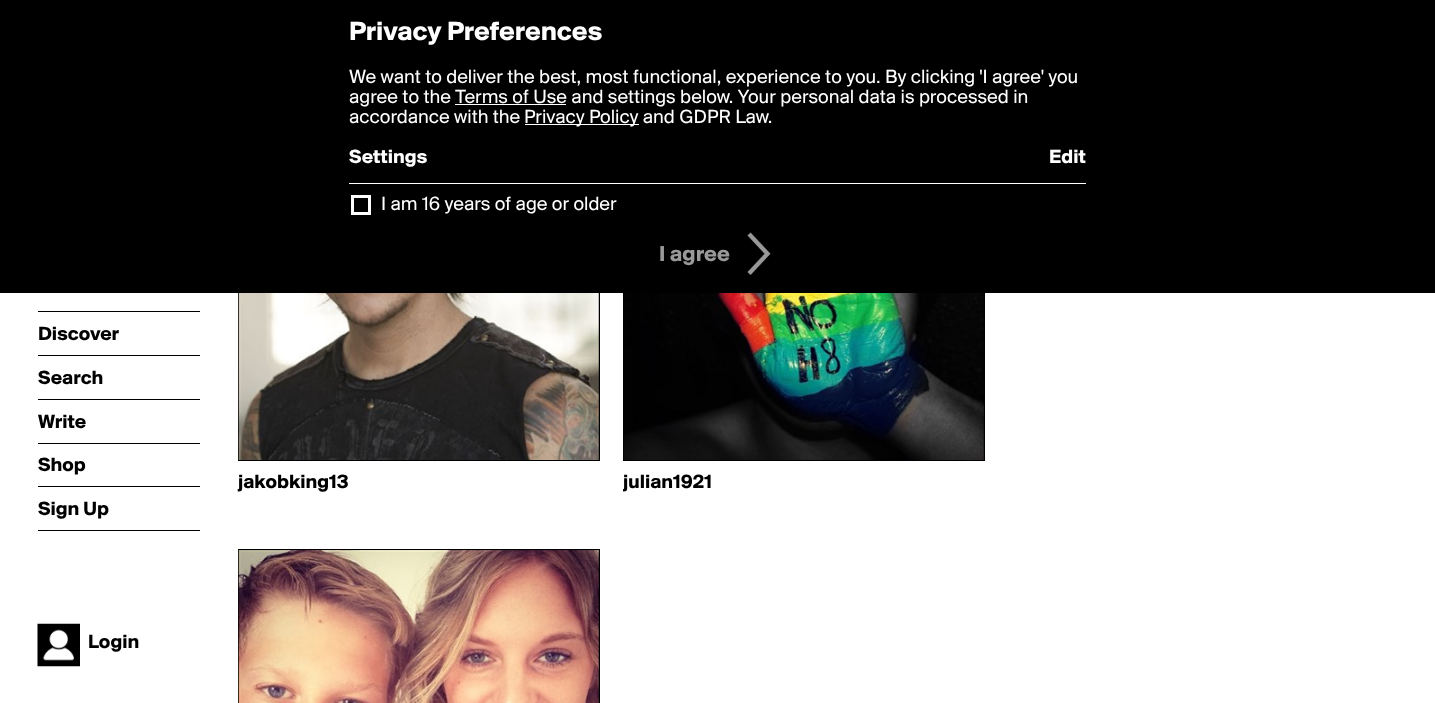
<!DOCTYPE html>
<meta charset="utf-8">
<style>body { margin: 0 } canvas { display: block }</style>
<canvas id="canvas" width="1435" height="703"></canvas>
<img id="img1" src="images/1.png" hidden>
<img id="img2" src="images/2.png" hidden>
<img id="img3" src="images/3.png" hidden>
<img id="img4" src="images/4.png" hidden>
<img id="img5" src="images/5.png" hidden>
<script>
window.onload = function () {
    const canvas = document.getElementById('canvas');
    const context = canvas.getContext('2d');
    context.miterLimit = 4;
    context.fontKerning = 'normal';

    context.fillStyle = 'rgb(255, 255, 255)';
    context.fillRect(0, 0, 1435, 703);
    context.fillStyle = 'rgb(0, 0, 0)';
    context.fillRect(0, 0, 1435, 293);
    context.fillStyle = 'rgb(255, 255, 255)';
    context.fillRect(455, 104, 111, 1);
    context.fillRect(525, 124, 114, 1);
    context.fillRect(349, 183, 737, 1);
    context.strokeStyle = 'rgb(255, 255, 255)';
    context.lineWidth = 3;
    context.strokeRect(352.5, 196.5, 17, 17);
    context.drawImage(document.getElementById('img1'), 747, 232, 24, 43);
    context.fillRect(237, 489, 1, 3);
    context.fillStyle = 'rgb(0, 0, 0)';
    context.fillRect(38, 311, 162, 1);
    context.fillRect(38, 355, 162, 1);
    context.fillRect(38, 399, 162, 1);
    context.fillRect(38, 443, 162, 1);
    context.fillRect(38, 486, 162, 1);
    context.fillRect(38, 530, 162, 1);
    context.drawImage(document.getElementById('img2'), 37, 623, 43, 44);
    context.fillRect(238, 293, 362, 168);
    context.drawImage(document.getElementById('img3'), 238, 293, 361, 167);
    context.fillRect(623, 293, 362, 168);
    context.drawImage(document.getElementById('img4'), 623, 293, 361, 167);
    context.fillRect(238, 549, 362, 154);
    context.drawImage(document.getElementById('img5'), 238, 550, 361, 153);
    context.font = 'bold 27.5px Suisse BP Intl';
    context.fillStyle = 'rgb(255, 255, 255)';
    context.fillText('Privacy Preferences', 349, 40);
    context.font = '20px Suisse BP Intl';
    context.fillText('We want to deliver the best, most functional, experience to you. By clicking \'I agree\' you', 349, 83);
    context.fillText('agree to the Terms of Use and settings below. Your personal data is processed in', 349, 103);
    context.fillText('accordance with the', 349, 123);
    context.fillText('Privacy Policy and GDPR Law.', 524, 123);
    context.font = 'bold 20px Suisse BP Intl';
    context.fillText('Settings', 349, 163);
    context.fillText('Edit', 1049, 163);
    context.font = '20px Suisse BP Intl';
    context.fillText('I am 16 years of age or older', 381, 210);
    context.font = 'bold 22.5px Suisse BP Intl';
    context.fillStyle = 'rgb(153, 153, 153)';
    context.fillText('I agree', 659, 261);
    context.font = 'bold 20px Suisse BP Intl';
    context.fillStyle = 'rgb(0, 0, 0)';
    context.fillText('Discover', 38, 340);
    context.fillText('Search', 38, 384);
    context.fillText('Write', 38, 428);
    context.fillText('Shop', 38, 471);
    context.fillText('Sign Up', 38, 515);
    context.fillText('Login', 88, 648);
    context.fillText('jakobking13', 238, 488);
    context.save();
    context.beginPath();
    context.rect(623, 466, 362, 33);
    context.clip();
    context.fillText('julian1921', 623, 488);
    context.restore();
};
</script>
